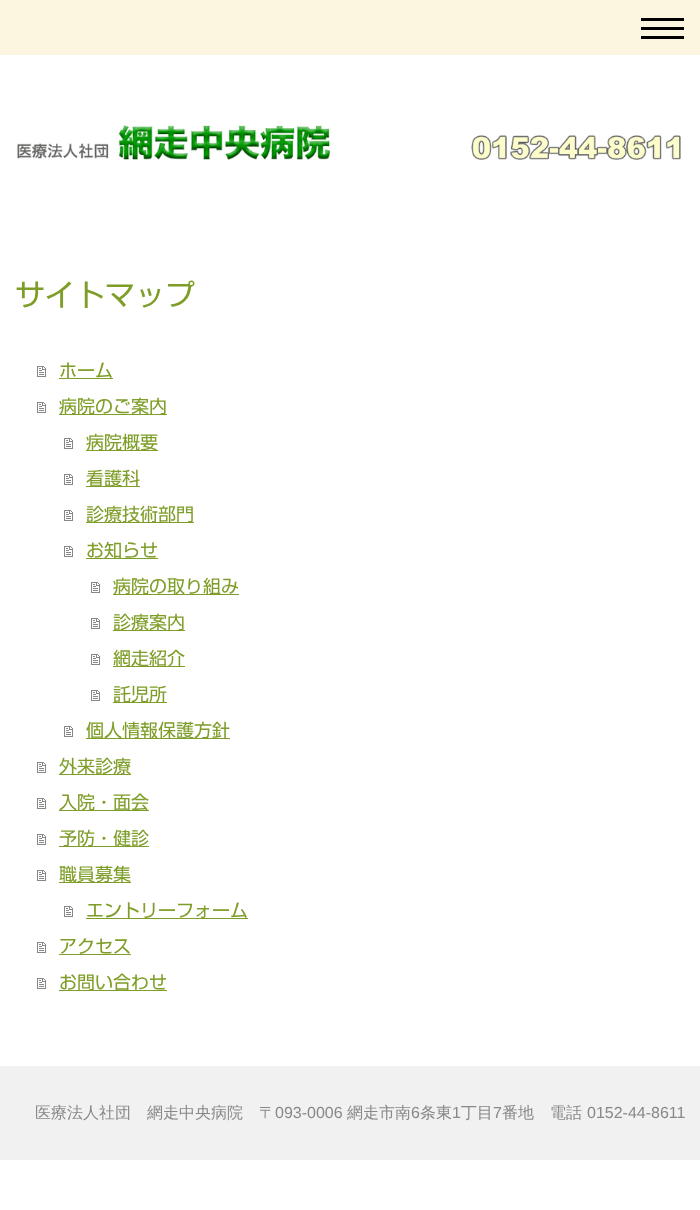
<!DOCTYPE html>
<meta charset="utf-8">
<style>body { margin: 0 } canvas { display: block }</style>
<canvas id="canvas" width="700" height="1210"></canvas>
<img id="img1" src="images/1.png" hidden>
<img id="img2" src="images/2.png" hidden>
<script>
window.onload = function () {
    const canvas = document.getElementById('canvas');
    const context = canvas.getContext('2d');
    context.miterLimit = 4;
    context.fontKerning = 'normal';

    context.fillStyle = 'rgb(255, 255, 255)';
    context.fillRect(0, 0, 700, 1210);
    context.fillStyle = 'rgb(252, 246, 225)';
    context.fillRect(0, 0, 700, 55);
    context.fillStyle = 'rgb(0, 0, 0)';
    context.fillRect(641, 27, 43, 3);
    context.fillRect(641, 18, 43, 3);
    context.fillRect(641, 36, 43, 3);
    context.drawImage(document.getElementById('img1'), 16, 125, 665, 35);
    context.drawImage(document.getElementById('img2'), 37, 366, 9, 11);
    context.fillStyle = 'rgb(127, 158, 41)';
    context.fillRect(59, 378, 54, 1);
    context.drawImage(document.getElementById('img2'), 37, 402, 9, 11);
    context.fillRect(59, 414, 108, 1);
    context.drawImage(document.getElementById('img2'), 64, 438, 9, 11);
    context.fillRect(86, 450, 72, 1);
    context.drawImage(document.getElementById('img2'), 64, 474, 9, 11);
    context.fillRect(86, 486, 54, 1);
    context.drawImage(document.getElementById('img2'), 64, 510, 9, 11);
    context.fillRect(86, 522, 108, 1);
    context.drawImage(document.getElementById('img2'), 64, 546, 9, 11);
    context.fillRect(86, 558, 72, 1);
    context.drawImage(document.getElementById('img2'), 91, 582, 9, 11);
    context.fillRect(113, 594, 126, 1);
    context.drawImage(document.getElementById('img2'), 91, 618, 9, 11);
    context.fillRect(113, 630, 72, 1);
    context.drawImage(document.getElementById('img2'), 91, 654, 9, 11);
    context.fillRect(113, 666, 72, 1);
    context.drawImage(document.getElementById('img2'), 91, 690, 9, 11);
    context.fillRect(113, 702, 54, 1);
    context.drawImage(document.getElementById('img2'), 64, 726, 9, 11);
    context.fillRect(86, 738, 144, 1);
    context.drawImage(document.getElementById('img2'), 37, 762, 9, 11);
    context.fillRect(59, 774, 72, 1);
    context.drawImage(document.getElementById('img2'), 37, 798, 9, 11);
    context.fillRect(59, 810, 90, 1);
    context.drawImage(document.getElementById('img2'), 37, 834, 9, 11);
    context.fillRect(59, 846, 90, 1);
    context.drawImage(document.getElementById('img2'), 37, 870, 9, 11);
    context.fillRect(59, 882, 72, 1);
    context.drawImage(document.getElementById('img2'), 64, 906, 9, 11);
    context.fillRect(86, 918, 162, 1);
    context.drawImage(document.getElementById('img2'), 37, 942, 9, 11);
    context.fillRect(59, 954, 72, 1);
    context.drawImage(document.getElementById('img2'), 37, 978, 9, 11);
    context.fillRect(59, 990, 108, 1);
    context.fillStyle = 'rgb(241, 241, 241)';
    context.fillRect(0, 1066, 700, 94);
    context.font = '30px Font';
    context.fillStyle = 'rgb(127, 158, 41)';
    context.fillText('サイトマップ', 15, 306);
    context.font = '18px Font';
    context.fillText('ホーム', 59, 377);
    context.fillText('病院のご案内', 59, 413);
    context.fillText('病院概要', 86, 449);
    context.fillText('看護科', 86, 485);
    context.fillText('診療技術部門', 86, 521);
    context.fillText('お知らせ', 86, 557);
    context.fillText('病院の取り組み', 113, 593);
    context.fillText('診療案内', 113, 629);
    context.fillText('網走紹介', 113, 665);
    context.fillText('託児所', 113, 701);
    context.fillText('個人情報保護方針', 86, 737);
    context.fillText('外来診療', 59, 773);
    context.fillText('入院・面会', 59, 809);
    context.fillText('予防・健診', 59, 845);
    context.fillText('職員募集', 59, 881);
    context.fillText('エントリーフォーム', 86, 917);
    context.fillText('アクセス', 59, 953);
    context.fillText('お問い合わせ', 59, 989);
    context.font = '500 16px WenQuanYi Zen Hei';
    context.fillStyle = 'rgb(136, 136, 136)';
    context.fillText('医療法人社団　網走中央病院　〒', 35, 1118);
    context.font = '16px Liberation Sans';
    context.fillText('093-0006', 275, 1118);
    context.font = '500 16px WenQuanYi Zen Hei';
    context.fillText('網走市南', 347, 1118);
    context.font = '16px Liberation Sans';
    context.fillText('6', 411, 1118);
    context.font = '500 16px WenQuanYi Zen Hei';
    context.fillText('条東', 420, 1118);
    context.font = '16px Liberation Sans';
    context.fillText('1', 452, 1118);
    context.font = '500 16px WenQuanYi Zen Hei';
    context.fillText('丁目', 461, 1118);
    context.font = '16px Liberation Sans';
    context.fillText('7', 493, 1118);
    context.font = '500 16px WenQuanYi Zen Hei';
    context.fillText('番地　電話', 502, 1118);
    context.font = '16px Liberation Sans';
    context.fillText('0152-44-8611', 587, 1118);
};
</script>
